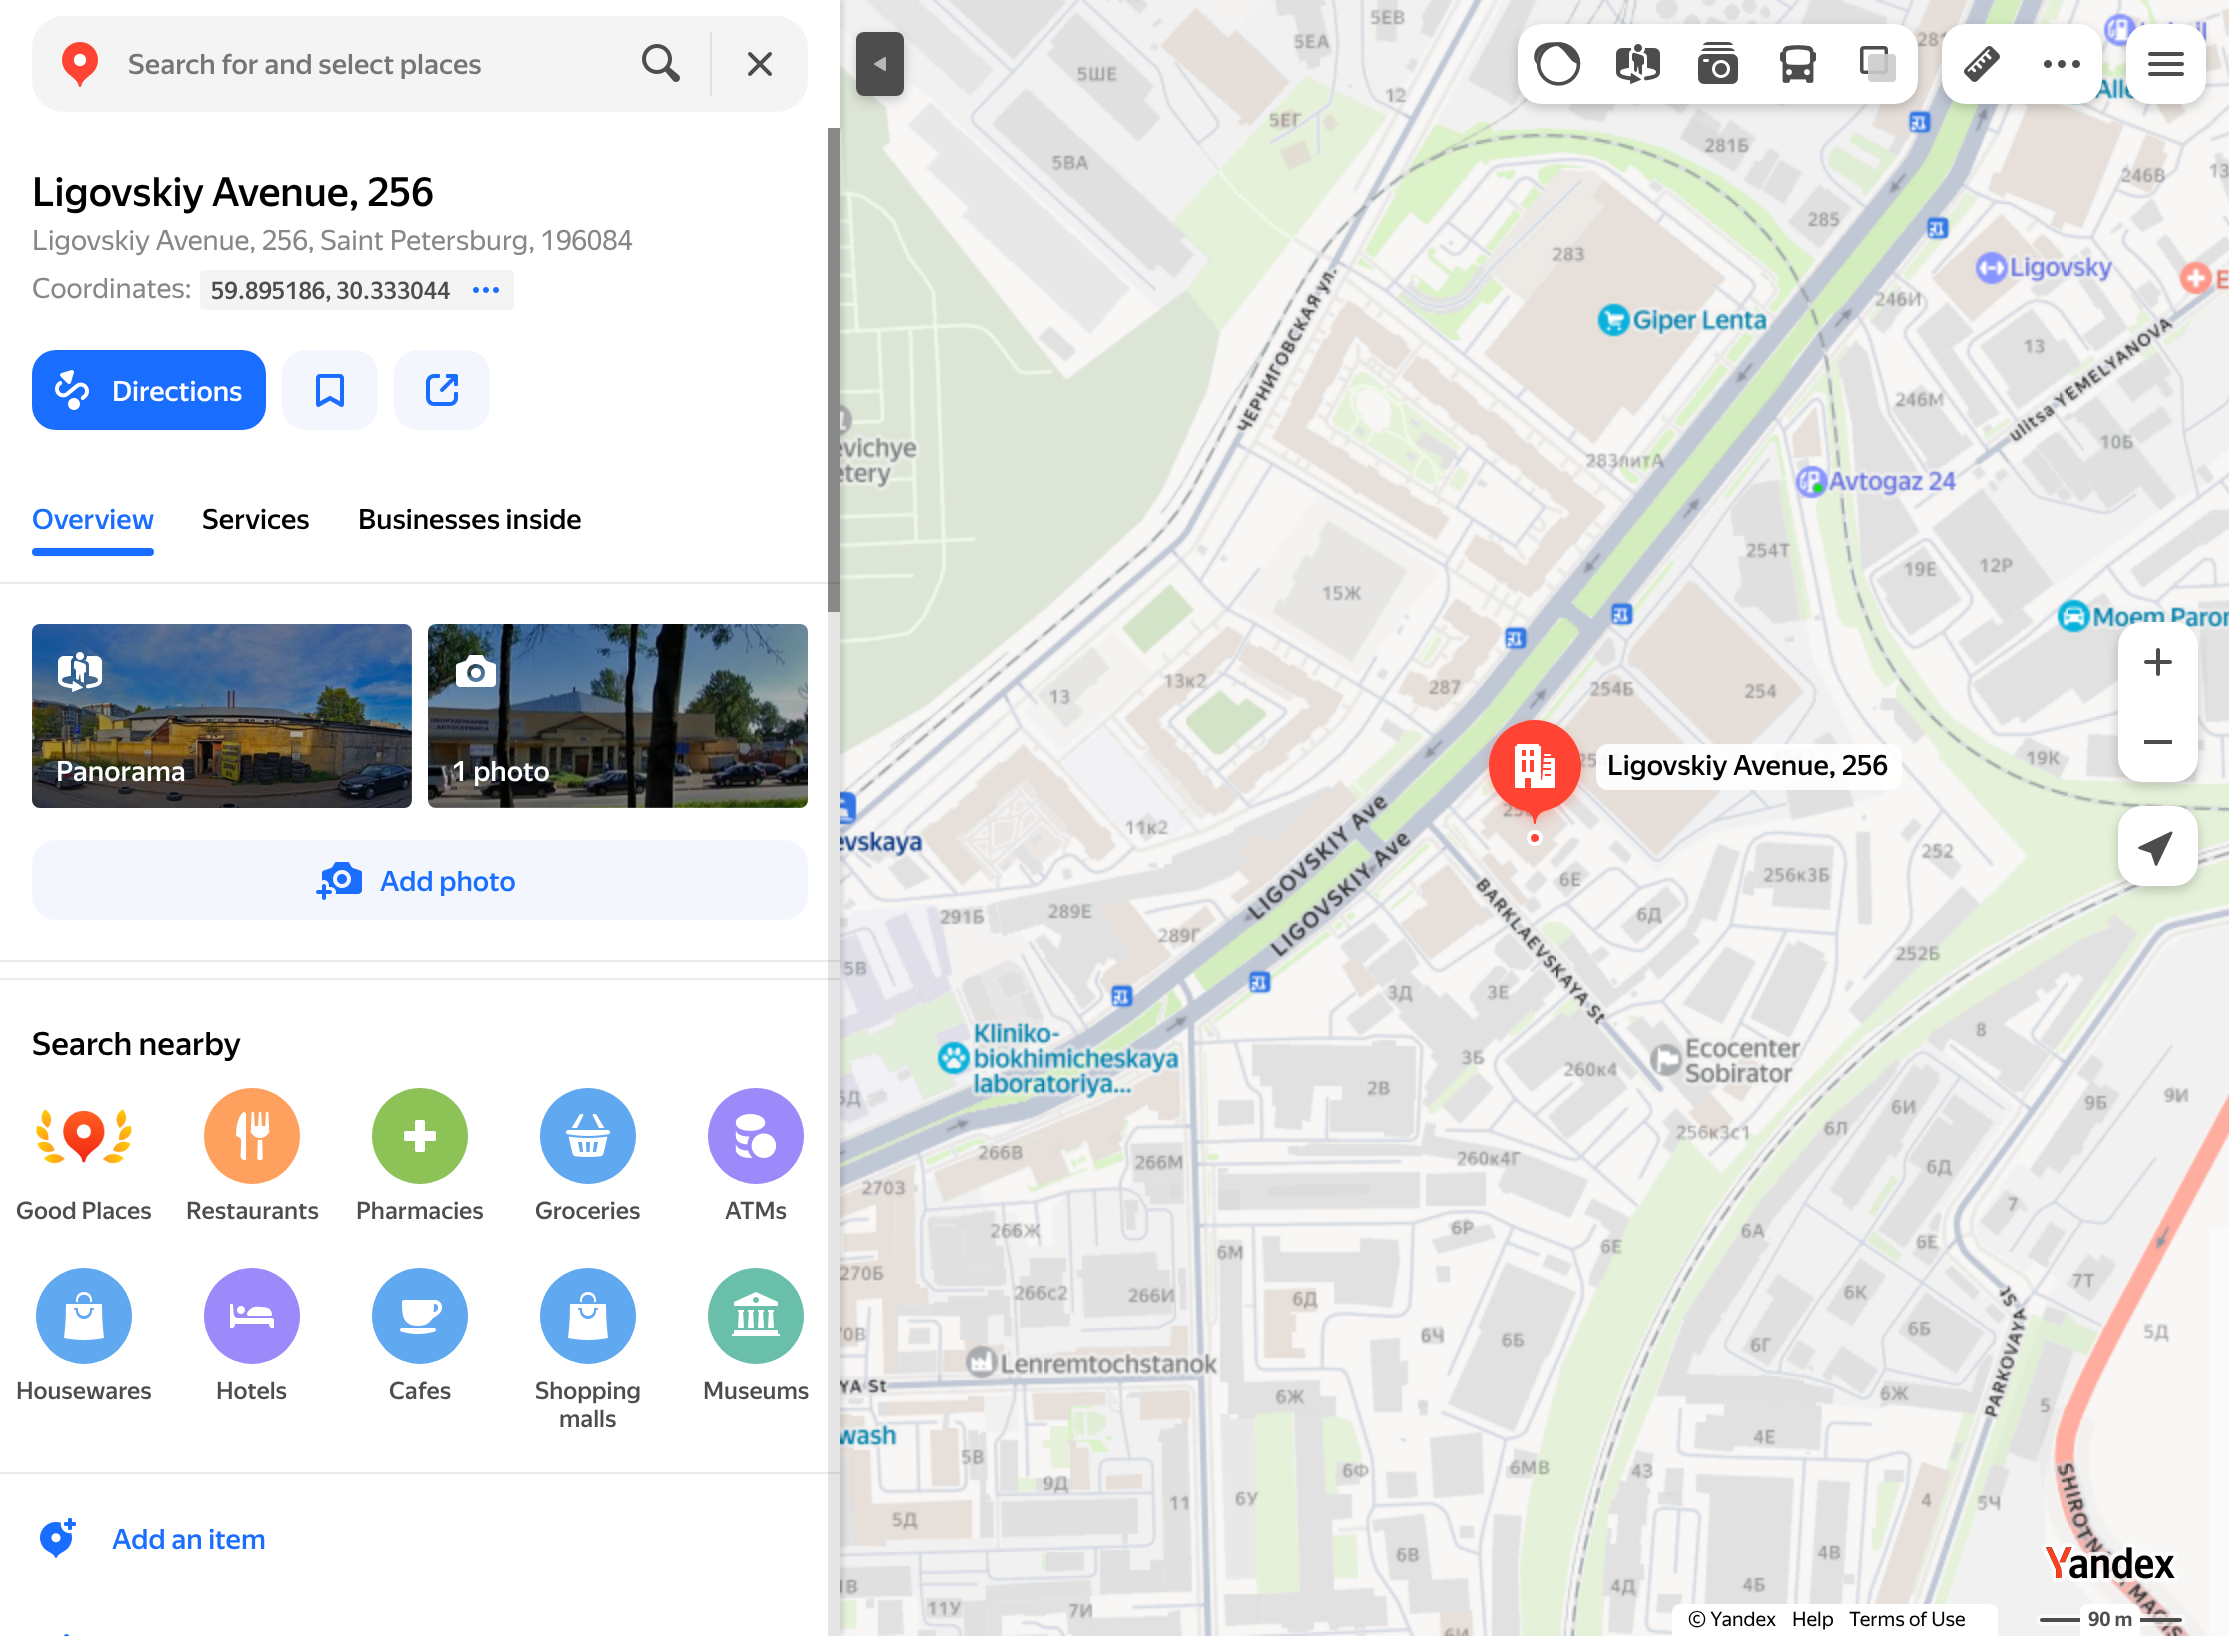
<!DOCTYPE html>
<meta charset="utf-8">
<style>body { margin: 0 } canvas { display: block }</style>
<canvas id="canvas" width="2229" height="1636"></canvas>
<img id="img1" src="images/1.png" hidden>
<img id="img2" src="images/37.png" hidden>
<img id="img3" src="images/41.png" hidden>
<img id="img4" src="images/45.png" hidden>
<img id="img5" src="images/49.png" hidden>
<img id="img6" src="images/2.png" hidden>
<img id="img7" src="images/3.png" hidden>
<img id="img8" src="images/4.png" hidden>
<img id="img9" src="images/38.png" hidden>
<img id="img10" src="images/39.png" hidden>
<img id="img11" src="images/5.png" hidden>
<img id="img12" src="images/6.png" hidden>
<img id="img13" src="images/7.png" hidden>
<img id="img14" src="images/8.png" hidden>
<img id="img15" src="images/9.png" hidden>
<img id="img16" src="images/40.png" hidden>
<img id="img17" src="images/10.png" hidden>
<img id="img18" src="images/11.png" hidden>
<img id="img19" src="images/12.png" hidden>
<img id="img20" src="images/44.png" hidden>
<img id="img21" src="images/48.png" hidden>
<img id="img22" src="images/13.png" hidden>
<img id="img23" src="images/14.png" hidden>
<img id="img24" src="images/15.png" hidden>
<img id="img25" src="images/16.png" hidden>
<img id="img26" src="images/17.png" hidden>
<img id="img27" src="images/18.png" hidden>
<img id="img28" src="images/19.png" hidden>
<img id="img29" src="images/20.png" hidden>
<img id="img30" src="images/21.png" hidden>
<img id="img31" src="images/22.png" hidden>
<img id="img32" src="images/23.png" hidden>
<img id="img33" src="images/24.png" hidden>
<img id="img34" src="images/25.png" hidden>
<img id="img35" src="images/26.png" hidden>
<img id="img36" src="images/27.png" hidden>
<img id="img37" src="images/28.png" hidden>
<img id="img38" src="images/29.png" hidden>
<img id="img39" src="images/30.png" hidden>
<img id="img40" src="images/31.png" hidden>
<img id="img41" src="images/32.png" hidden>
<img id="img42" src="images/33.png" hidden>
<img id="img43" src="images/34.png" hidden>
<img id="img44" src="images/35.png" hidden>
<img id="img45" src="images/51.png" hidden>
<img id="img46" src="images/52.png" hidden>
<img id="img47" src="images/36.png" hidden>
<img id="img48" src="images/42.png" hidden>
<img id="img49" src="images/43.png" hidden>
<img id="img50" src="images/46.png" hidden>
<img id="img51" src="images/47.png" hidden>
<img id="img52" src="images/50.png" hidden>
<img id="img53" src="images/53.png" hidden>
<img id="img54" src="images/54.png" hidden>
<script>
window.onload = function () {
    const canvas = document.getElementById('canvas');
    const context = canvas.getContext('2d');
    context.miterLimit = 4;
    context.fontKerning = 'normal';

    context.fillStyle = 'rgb(255, 255, 255)';
    context.fillRect(0, 0, 2229, 1636);
    context.drawImage(document.getElementById('img1'), 2210, 1228, 19, 408);
    context.drawImage(document.getElementById('img2'), 840, 0, 204, 204);
    context.drawImage(document.getElementById('img3'), 840, 204, 204, 512);
    context.drawImage(document.getElementById('img4'), 840, 716, 204, 512);
    context.drawImage(document.getElementById('img5'), 840, 1228, 204, 408);
    context.fillStyle = 'rgba(0, 0, 0, 0.1)';
    context.filter = 'blur(2px)';
    context.beginPath();
    context.rect(4, 0, 840, 1636);
    context.fill();
    context.filter = 'none';
    context.fillStyle = 'rgba(0, 0, 0, 0.2)';
    context.filter = 'blur(6px)';
    context.beginPath();
    context.roundRect(856, 36, 48, 64, 8);
    context.fill();
    context.filter = 'none';
    context.fillStyle = 'rgb(255, 255, 255)';
    context.fillRect(1, 0, 839, 1636);
    context.fillStyle = 'rgb(244, 244, 244)';
    context.beginPath();
    context.roundRect(32, 16, 776, 96, 32);
    context.fill();
    context.drawImage(document.getElementById('img6'), 62, 42, 36, 45);
    context.drawImage(document.getElementById('img7'), 642, 44, 38, 38);
    context.fillStyle = 'rgb(224, 224, 224)';
    context.fillRect(710, 32, 2, 64);
    context.drawImage(document.getElementById('img8'), 748, 52, 24, 24);
    context.drawImage(document.getElementById('img9'), 1044, 0, 512, 204);
    context.drawImage(document.getElementById('img10'), 1556, 0, 512, 204);
    context.fillStyle = 'rgba(0, 0, 0, 0.2)';
    context.filter = 'blur(6px)';
    context.beginPath();
    context.roundRect(1518, 28, 400, 80, 24);
    context.fill();
    context.filter = 'none';
    context.fillStyle = 'rgb(255, 255, 255)';
    context.beginPath();
    context.roundRect(1518, 24, 80, 80, [24, 0, 0, 24]);
    context.fill();
    context.drawImage(document.getElementById('img11'), 1534, 42, 47, 44);
    context.fillRect(1598, 24, 240, 80);
    context.drawImage(document.getElementById('img12'), 1616, 44, 44, 40);
    context.beginPath();
    context.roundRect(1838, 24, 80, 80, [0, 24, 24, 0]);
    context.fill();
    context.drawImage(document.getElementById('img13'), 1860, 46, 36, 36);
    context.drawImage(document.getElementById('img14'), 1698, 42, 40, 42);
    context.drawImage(document.getElementById('img15'), 1780, 45, 36, 38);
    context.drawImage(document.getElementById('img16'), 2068, 0, 161, 204);
    context.fillStyle = 'rgba(0, 0, 0, 0.2)';
    context.filter = 'blur(6px)';
    context.beginPath();
    context.roundRect(1942, 28, 160, 80, 24);
    context.fill();
    context.filter = 'none';
    context.fillStyle = 'rgb(255, 255, 255)';
    context.beginPath();
    context.roundRect(1942, 24, 80, 80, [24, 0, 0, 24]);
    context.fill();
    context.drawImage(document.getElementById('img17'), 1964, 46, 36, 36);
    context.beginPath();
    context.roundRect(2022, 24, 80, 80, [0, 24, 24, 0]);
    context.fill();
    context.drawImage(document.getElementById('img18'), 2044, 60, 36, 8);
    context.fillStyle = 'rgba(0, 0, 0, 0.2)';
    context.filter = 'blur(6px)';
    context.beginPath();
    context.roundRect(2126, 28, 80, 80, 24);
    context.fill();
    context.filter = 'none';
    context.fillStyle = 'rgb(255, 255, 255)';
    context.beginPath();
    context.roundRect(2126, 24, 80, 80, 24);
    context.fill();
    context.drawImage(document.getElementById('img19'), 2148, 52, 36, 24);
    context.drawImage(document.getElementById('img20'), 2068, 204, 161, 512);
    context.drawImage(document.getElementById('img21'), 2068, 716, 161, 512);
    context.fillStyle = 'rgba(0, 0, 0, 0.2)';
    context.filter = 'blur(6px)';
    context.beginPath();
    context.roundRect(2118, 626, 80, 160, 24);
    context.fill();
    context.filter = 'none';
    context.fillStyle = 'rgb(255, 255, 255)';
    context.beginPath();
    context.roundRect(2118, 622, 80, 80, [24, 24, 0, 0]);
    context.fill();
    context.drawImage(document.getElementById('img22'), 2144, 648, 28, 28);
    context.beginPath();
    context.roundRect(2118, 702, 80, 80, [0, 0, 24, 24]);
    context.fill();
    context.fillStyle = 'rgb(77, 77, 77)';
    context.fillRect(2144, 740, 28, 4);
    context.fillStyle = 'rgba(0, 0, 0, 0.2)';
    context.filter = 'blur(6px)';
    context.beginPath();
    context.roundRect(2118, 810, 80, 80, 24);
    context.fill();
    context.filter = 'none';
    context.fillStyle = 'rgb(255, 255, 255)';
    context.beginPath();
    context.roundRect(2118, 806, 80, 80, 24);
    context.fill();
    context.drawImage(document.getElementById('img23'), 2138, 831, 35, 35);
    context.fillStyle = 'rgb(77, 77, 77)';
    context.beginPath();
    context.roundRect(856, 32, 48, 64, 8);
    context.fill();
    context.drawImage(document.getElementById('img24'), 874, 57, 12, 14);
    context.fillStyle = 'rgb(244, 244, 244)';
    context.beginPath();
    context.roundRect(200, 270, 314, 40, 4);
    context.fill();
    context.drawImage(document.getElementById('img25'), 473, 287, 26, 6);
    context.fillStyle = 'rgb(25, 109, 255)';
    context.beginPath();
    context.roundRect(32, 350, 234, 80, 24);
    context.fill();
    context.drawImage(document.getElementById('img26'), 55, 370, 34, 40);
    context.fillStyle = 'rgb(243, 246, 252)';
    context.beginPath();
    context.roundRect(282, 350, 96, 80, 24);
    context.fill();
    context.drawImage(document.getElementById('img27'), 316, 374, 28, 33);
    context.beginPath();
    context.roundRect(394, 350, 96, 80, 24);
    context.fill();
    context.drawImage(document.getElementById('img28'), 426, 374, 32, 32);
    context.fillStyle = 'rgb(25, 109, 255)';
    context.beginPath();
    context.roundRect(32, 548, 122, 8, 4);
    context.fill();
    context.fillStyle = 'rgb(235, 235, 235)';
    context.fillRect(0, 582, 840, 2);
    context.fillRect(0, 960, 840, 2);
    context.drawImage(document.getElementById('img29'), 32, 624, 380, 184);
    context.fillStyle = 'rgba(0, 0, 0, 0.3)';
    context.beginPath();
    context.roundRect(32, 624, 380, 184, 8);
    context.fill();
    context.drawImage(document.getElementById('img30'), 58, 652, 44, 40);
    context.drawImage(document.getElementById('img31'), 428, 624, 380, 184);
    context.beginPath();
    context.roundRect(428, 624, 380, 184, 8);
    context.fill();
    context.drawImage(document.getElementById('img32'), 456, 655, 40, 32);
    context.fillStyle = 'rgb(243, 246, 252)';
    context.beginPath();
    context.roundRect(32, 840, 776, 80, 24);
    context.fill();
    context.drawImage(document.getElementById('img33'), 316, 862, 46, 38);
    context.fillStyle = 'rgb(235, 235, 235)';
    context.fillRect(0, 978, 840, 2);
    context.fillRect(0, 1472, 840, 2);
    context.drawImage(document.getElementById('img34'), 36, 1109, 96, 55);
    context.fillStyle = 'rgb(255, 161, 94)';
    context.beginPath();
    context.arc(252, 1136, 48, 0, 2 * Math.PI);
    context.fill();
    context.drawImage(document.getElementById('img35'), 236, 1112, 34, 48);
    context.fillStyle = 'rgb(141, 194, 87)';
    context.beginPath();
    context.arc(420, 1136, 48, 0, 2 * Math.PI);
    context.fill();
    context.drawImage(document.getElementById('img36'), 404, 1120, 32, 32);
    context.fillStyle = 'rgb(96, 168, 240)';
    context.beginPath();
    context.arc(588, 1136, 48, 0, 2 * Math.PI);
    context.fill();
    context.drawImage(document.getElementById('img37'), 566, 1114, 44, 43);
    context.fillStyle = 'rgb(156, 137, 250)';
    context.beginPath();
    context.arc(756, 1136, 48, 0, 2 * Math.PI);
    context.fill();
    context.drawImage(document.getElementById('img38'), 735, 1114, 42, 44);
    context.fillStyle = 'rgb(96, 168, 240)';
    context.beginPath();
    context.arc(84, 1316, 48, 0, 2 * Math.PI);
    context.fill();
    context.drawImage(document.getElementById('img39'), 64, 1292, 40, 48);
    context.fillStyle = 'rgb(156, 137, 250)';
    context.beginPath();
    context.arc(252, 1316, 48, 0, 2 * Math.PI);
    context.fill();
    context.drawImage(document.getElementById('img40'), 230, 1304, 44, 24);
    context.fillStyle = 'rgb(96, 168, 240)';
    context.beginPath();
    context.arc(420, 1316, 48, 0, 2 * Math.PI);
    context.fill();
    context.drawImage(document.getElementById('img41'), 400, 1300, 42, 34);
    context.beginPath();
    context.arc(588, 1316, 48, 0, 2 * Math.PI);
    context.fill();
    context.drawImage(document.getElementById('img39'), 568, 1292, 40, 48);
    context.fillStyle = 'rgb(105, 191, 170)';
    context.beginPath();
    context.arc(756, 1316, 48, 0, 2 * Math.PI);
    context.fill();
    context.drawImage(document.getElementById('img42'), 732, 1292, 48, 44);
    context.drawImage(document.getElementById('img43'), 40, 1518, 36, 40);
    context.drawImage(document.getElementById('img44'), 63, 1634, 7, 2);
    context.fillStyle = 'rgba(0, 0, 0, 0.1)';
    context.fillRect(828, 128, 12, 1508);
    context.fillStyle = 'rgba(0, 0, 0, 0.4)';
    context.fillRect(828, 128, 12, 484);
    context.drawImage(document.getElementById('img45'), 1556, 1228, 512, 408);
    context.drawImage(document.getElementById('img46'), 2068, 1228, 142, 408);
    context.drawImage(document.getElementById('img47'), 2042, 1543, 137, 40);
    context.fillStyle = 'rgb(255, 255, 255)';
    context.beginPath();
    context.roundRect(1672, 1604, 326, 32, [8, 8, 0, 0]);
    context.fill();
    context.fillStyle = 'rgba(255, 255, 255, 0.6)';
    context.beginPath();
    context.roundRect(2036, 1614, 150, 12, 6);
    context.fill();
    context.fillStyle = 'rgb(77, 77, 77)';
    context.beginPath();
    context.roundRect(2040, 1618, 142, 4, 2);
    context.fill();
    context.fillStyle = 'rgb(255, 255, 255)';
    context.beginPath();
    context.roundRect(2080, 1604, 60, 32, [8, 8, 0, 0]);
    context.fill();
    context.drawImage(document.getElementById('img48'), 1044, 204, 512, 512);
    context.drawImage(document.getElementById('img49'), 1556, 204, 512, 512);
    context.drawImage(document.getElementById('img50'), 1044, 716, 512, 512);
    context.drawImage(document.getElementById('img51'), 1556, 716, 512, 512);
    context.drawImage(document.getElementById('img52'), 1044, 1228, 512, 408);
    context.drawImage(document.getElementById('img53'), 1481, 717, 107, 129);
    context.drawImage(document.getElementById('img54'), 1515, 744, 40, 44);
    context.fillStyle = 'rgba(255, 255, 255, 0.9)';
    context.beginPath();
    context.roundRect(1596, 744, 306, 46, 12);
    context.fill();
    context.font = '500 28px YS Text';
    context.fillStyle = 'rgb(117, 117, 117)';
    context.fillText('Search for and select places', 128, 74);
    context.font = '500 40px YS Text';
    context.fillStyle = 'rgb(0, 0, 0)';
    context.fillText('Ligovskiy Avenue, 256', 32, 206);
    context.font = '28px YS Text';
    context.fillStyle = 'rgb(135, 135, 135)';
    context.fillText('Ligovskiy Avenue, 256, Saint Petersburg, 196084', 32, 250);
    context.fillText('Coordinates:', 32, 298);
    context.font = '500 24px YS Text';
    context.fillStyle = 'rgb(77, 77, 77)';
    context.fillText('59.895186, 30.333044', 211, 299);
    context.font = '500 28px YS Text';
    context.fillStyle = 'rgb(255, 255, 255)';
    context.fillText('Directions', 112, 401);
    context.fillStyle = 'rgb(25, 109, 255)';
    context.fillText('Overview', 32, 529);
    context.fillStyle = 'rgb(0, 0, 0)';
    context.fillText('Services', 202, 529);
    context.fillText('Businesses inside', 358, 529);
    context.fillStyle = 'rgb(255, 255, 255)';
    context.fillText('Panorama', 56, 781);
    context.fillText('1 photo', 452, 781);
    context.fillStyle = 'rgb(25, 109, 255)';
    context.fillText('Add photo', 380, 891);
    context.font = '500 32px YS Text';
    context.fillStyle = 'rgb(0, 0, 0)';
    context.fillText('Search nearby', 32, 1055);
    context.font = '500 24px YS Text';
    context.fillStyle = 'rgb(77, 77, 77)';
    context.fillText('Good Places', 16, 1219);
    context.fillText('Restaurants', 186, 1219);
    context.fillText('Pharmacies', 356, 1219);
    context.fillText('Groceries', 535, 1219);
    context.fillText('ATMs', 725, 1219);
    context.fillText('Housewares', 16, 1399);
    context.fillText('Hotels', 216, 1399);
    context.fillText('Cafes', 389, 1399);
    context.fillText('Shopping', 535, 1399);
    context.fillText('malls', 559, 1427);
    context.fillText('Museums', 703, 1399);
    context.font = '500 28px YS Text';
    context.fillStyle = 'rgb(25, 109, 255)';
    context.fillText('Add an item', 112, 1549);
    context.font = '20px YS Text';
    context.fillStyle = 'rgb(0, 0, 0)';
    context.fillText('© Yandex', 1688, 1626);
    context.fillText('Help', 1792, 1626);
    context.fillText('Terms of Use', 1849, 1626);
    context.font = 'bold 20px YS Text';
    context.fillStyle = 'rgb(77, 77, 77)';
    context.fillText('90 m', 2088, 1626);
    context.font = '500 28px YS Text';
    context.fillStyle = 'rgb(0, 0, 0)';
    context.fillText('Ligovskiy Avenue, 256', 1607, 775);
};
</script>
